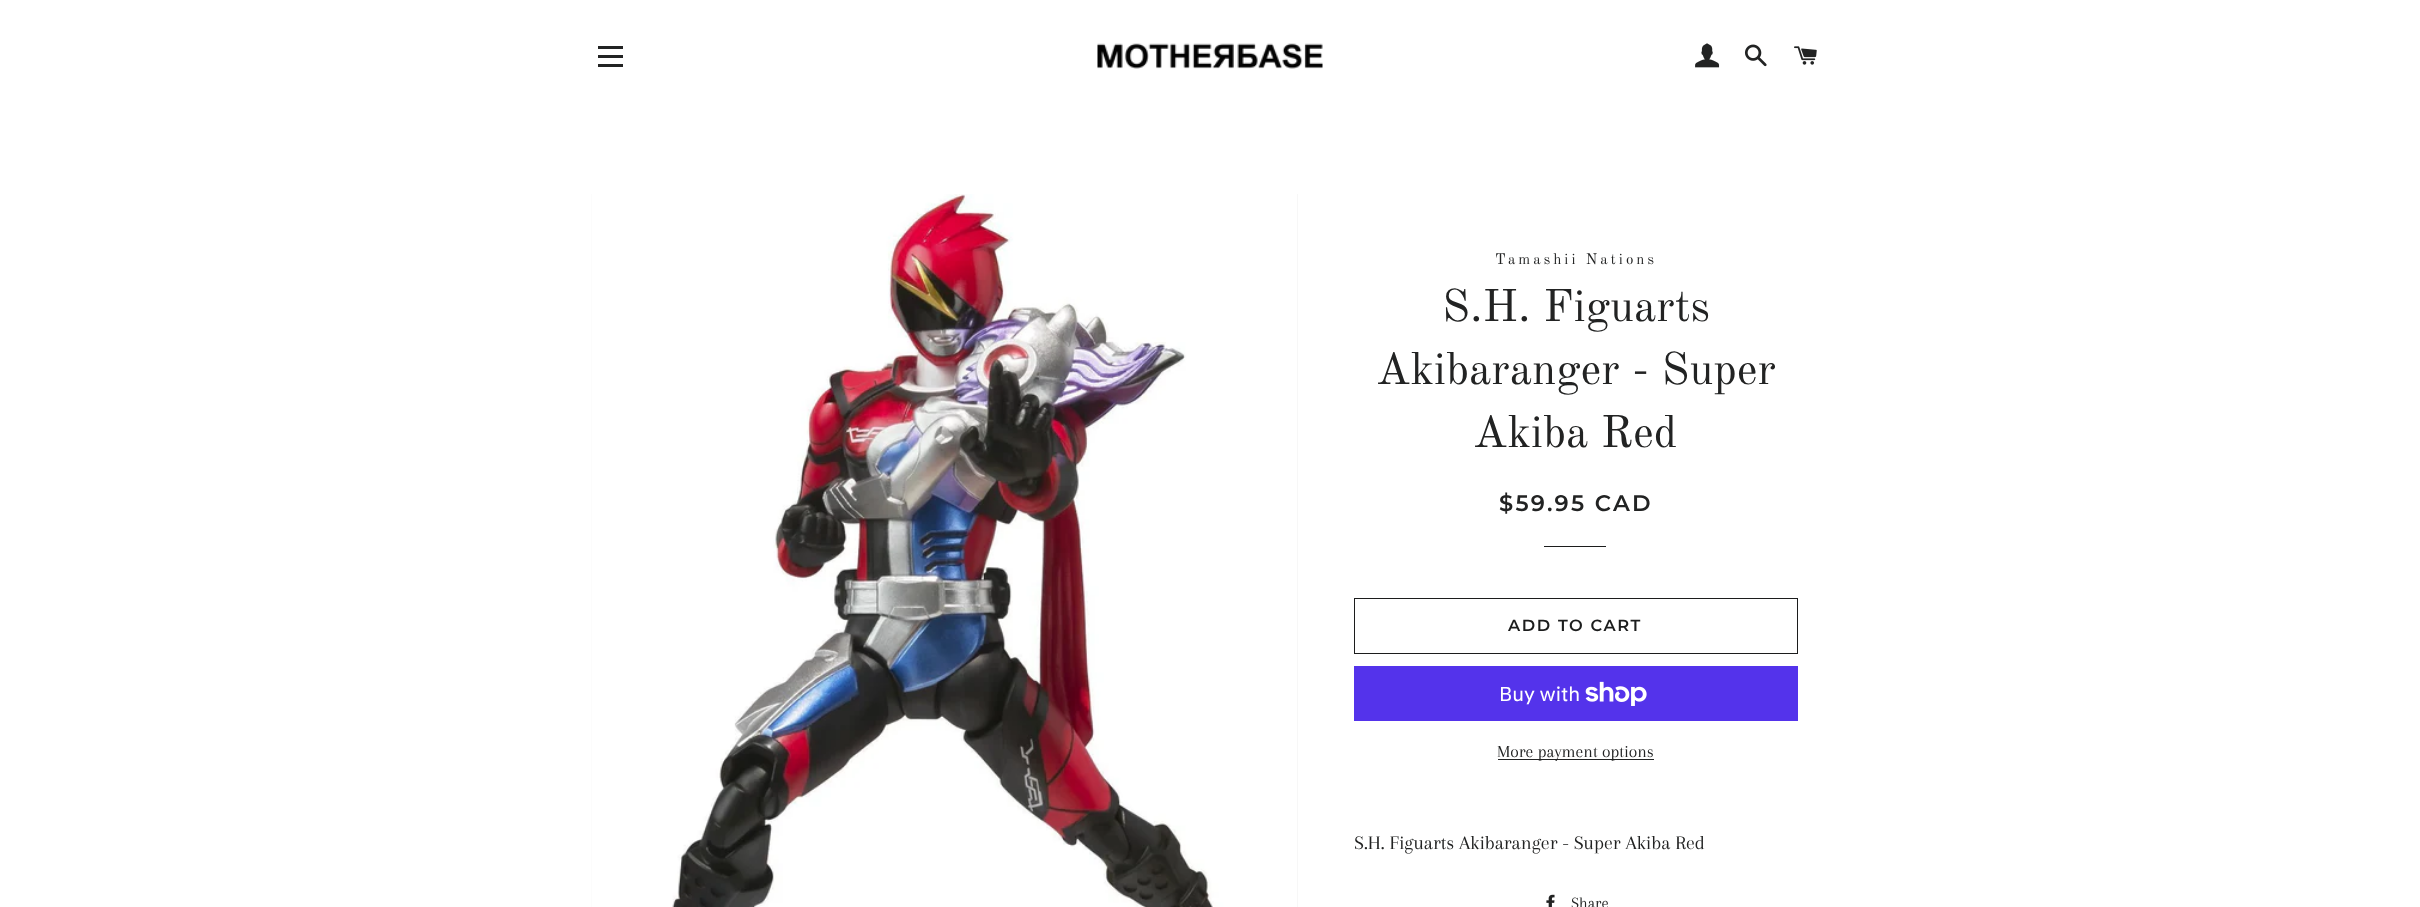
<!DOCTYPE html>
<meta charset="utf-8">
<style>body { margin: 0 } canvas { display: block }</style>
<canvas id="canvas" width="2420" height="907"></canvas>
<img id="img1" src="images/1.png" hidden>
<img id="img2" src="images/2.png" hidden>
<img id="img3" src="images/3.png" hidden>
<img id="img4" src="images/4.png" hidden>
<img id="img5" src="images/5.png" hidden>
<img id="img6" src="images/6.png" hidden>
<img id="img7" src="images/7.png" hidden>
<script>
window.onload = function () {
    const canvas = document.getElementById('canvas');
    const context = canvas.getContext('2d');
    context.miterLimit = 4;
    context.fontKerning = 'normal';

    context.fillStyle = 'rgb(255, 255, 255)';
    context.fillRect(0, 0, 2420, 907);
    context.fillStyle = 'rgb(34, 35, 35)';
    context.fillRect(598, 46, 25, 3);
    context.fillRect(598, 55, 25, 3);
    context.fillRect(598, 64, 25, 3);
    context.drawImage(document.getElementById('img1'), 1097, 43, 226, 26);
    context.drawImage(document.getElementById('img2'), 1695, 43, 25, 25);
    context.drawImage(document.getElementById('img3'), 1744, 44, 23, 23);
    context.drawImage(document.getElementById('img4'), 1794, 46, 23, 19);
    context.fillStyle = 'rgb(247, 247, 247)';
    context.fillRect(591, 194, 707, 713);
    context.drawImage(document.getElementById('img5'), 591, 194, 706, 713);
    context.fillStyle = 'rgb(28, 29, 29)';
    context.fillRect(1544, 546, 62, 1);
    context.strokeStyle = 'rgb(28, 29, 29)';
    context.strokeRect(1354.5, 598.5, 443, 55);
    context.fillStyle = 'rgb(84, 51, 235)';
    context.fillRect(1354, 666, 444, 55);
    context.drawImage(document.getElementById('img6'), 1585, 681, 62, 25);
    context.fillStyle = 'rgb(34, 35, 35)';
    context.fillRect(1498, 759, 156, 1);
    context.drawImage(document.getElementById('img7'), 1546, 894, 9, 13);
    context.letterSpacing = '3px';
    context.font = '15px Old Standard TT';
    context.fillText('Tamashii Nations', 1495, 264);
    context.letterSpacing = '0px';
    context.font = '45px Old Standard TT';
    context.fillText('S.H. Figuarts', 1442, 321);
    context.fillText('Akibaranger - Super', 1376, 384);
    context.fillText('Akiba Red', 1473, 447);
    context.letterSpacing = '2.25px';
    context.font = '600 22.5px Montserrat';
    context.fillText('$59.95 CAD', 1499, 511);
    context.letterSpacing = '1.6px';
    context.font = '600 16.25px Montserrat';
    context.fillStyle = 'rgb(28, 29, 29)';
    context.fillText('ADD TO CART', 1508, 631);
    context.letterSpacing = '0px';
    context.font = '20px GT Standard';
    context.fillStyle = 'rgb(255, 255, 255)';
    context.fillText('Buy with', 1499, 701);
    context.font = '17.5px Arapey';
    context.fillStyle = 'rgb(34, 35, 35)';
    context.fillText('More payment options', 1497, 757);
    context.font = '20px Arapey';
    context.fillText('S.H. Figuarts Akibaranger - Super Akiba Red', 1354, 849);
    context.font = '16.25px Arapey';
    context.fillText('Share', 1571, 908);
};
</script>
